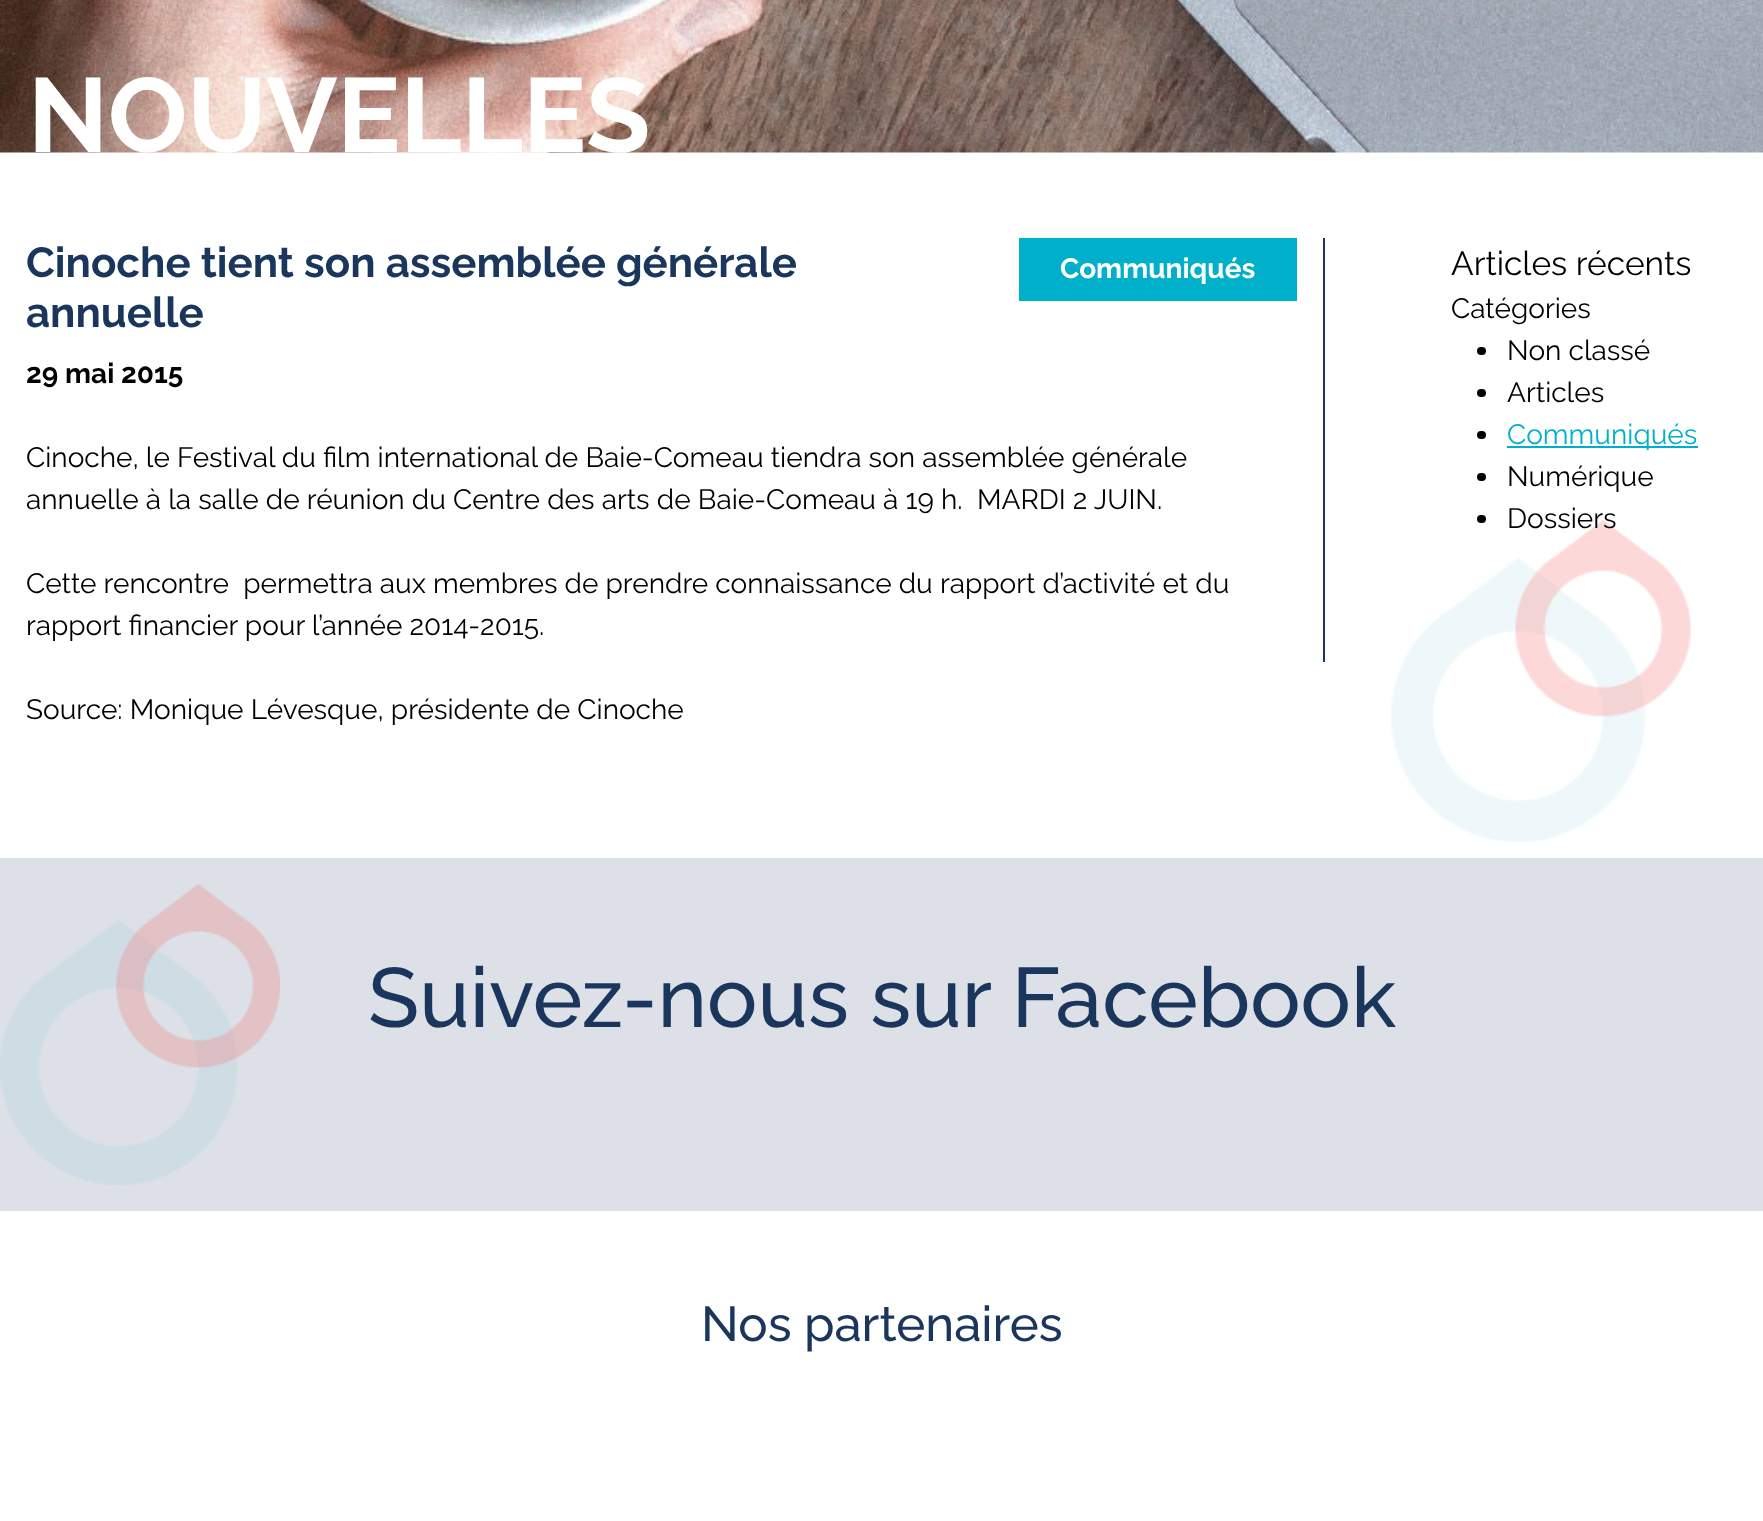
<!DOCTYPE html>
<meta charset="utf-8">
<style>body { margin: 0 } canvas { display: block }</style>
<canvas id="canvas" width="1763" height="1521"></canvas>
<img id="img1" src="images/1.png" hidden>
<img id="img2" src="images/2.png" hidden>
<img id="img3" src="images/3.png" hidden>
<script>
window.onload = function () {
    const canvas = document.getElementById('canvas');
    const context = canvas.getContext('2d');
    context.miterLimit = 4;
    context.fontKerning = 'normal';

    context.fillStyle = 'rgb(255, 255, 255)';
    context.fillRect(0, 0, 1763, 1521);
    context.drawImage(document.getElementById('img1'), 1391, 520, 300, 322);
    context.drawImage(document.getElementById('img2'), 0, 0, 1763, 153);
    context.fillStyle = 'rgb(0, 176, 202)';
    context.fillRect(1019, 238, 278, 63);
    context.fillStyle = 'rgb(27, 54, 93)';
    context.fillRect(1323, 238, 2, 424);
    context.fillStyle = 'rgb(0, 0, 0)';
    context.beginPath();
    context.roundRect(1477, 347, 9, 8, 4);
    context.fill();
    context.beginPath();
    context.roundRect(1477, 389, 9, 8, 4);
    context.fill();
    context.beginPath();
    context.roundRect(1477, 431, 9, 8, 4);
    context.fill();
    context.fillStyle = 'rgb(0, 176, 202)';
    context.fillRect(1507, 446, 191, 2);
    context.fillStyle = 'rgb(0, 0, 0)';
    context.beginPath();
    context.roundRect(1477, 473, 9, 8, 4);
    context.fill();
    context.beginPath();
    context.roundRect(1477, 515, 9, 8, 4);
    context.fill();
    context.fillStyle = 'rgb(221, 225, 231)';
    context.fillRect(0, 858, 1763, 353);
    context.drawImage(document.getElementById('img3'), 0, 884, 280, 301);
    context.font = 'bold 105px Raleway';
    context.fillStyle = 'rgb(255, 255, 255)';
    context.fillText('NOUVELLES', 28, 152);
    context.font = 'bold 42px Raleway';
    context.fillStyle = 'rgb(27, 54, 93)';
    context.fillText('Cinoche tient son assemblée générale', 26, 277);
    context.fillText('annuelle', 26, 327);
    context.font = 'bold 28px Raleway';
    context.fillStyle = 'rgb(255, 255, 255)';
    context.fillText('Communiqués', 1060, 278);
    context.fillStyle = 'rgb(0, 0, 0)';
    context.fillText('29 mai 2015', 26, 383);
    context.font = '28px Raleway';
    context.fillText('Cinoche, le Festival du film international de Baie-Comeau tiendra son assemblée générale', 26, 467);
    context.fillText('annuelle à la salle de réunion du Centre des arts de Baie-Comeau à 19 h.  MARDI 2 JUIN.', 26, 509);
    context.fillText('Cette rencontre  permettra aux membres de prendre connaissance du rapport d’activité et du', 26, 593);
    context.fillText('rapport financier pour l’année 2014-2015.', 26, 635);
    context.fillText('Source: Monique Lévesque, présidente de Cinoche', 26, 719);
    context.font = '33.5px Raleway';
    context.fillText('Articles récents', 1451, 275);
    context.font = '28px Raleway';
    context.fillText('Catégories', 1451, 318);
    context.fillText('Non classé', 1507, 360);
    context.fillText('Articles', 1507, 402);
    context.fillStyle = 'rgb(0, 176, 202)';
    context.fillText('Communiqués', 1507, 444);
    context.fillStyle = 'rgb(0, 0, 0)';
    context.fillText('Numérique', 1507, 486);
    context.fillText('Dossiers', 1507, 528);
    context.font = '500 84px Raleway';
    context.fillStyle = 'rgb(27, 54, 93)';
    context.fillText('Suivez-nous sur Facebook', 368, 1027);
    context.font = '500 49px Raleway';
    context.fillText('Nos partenaires', 701, 1341);
};
</script>
